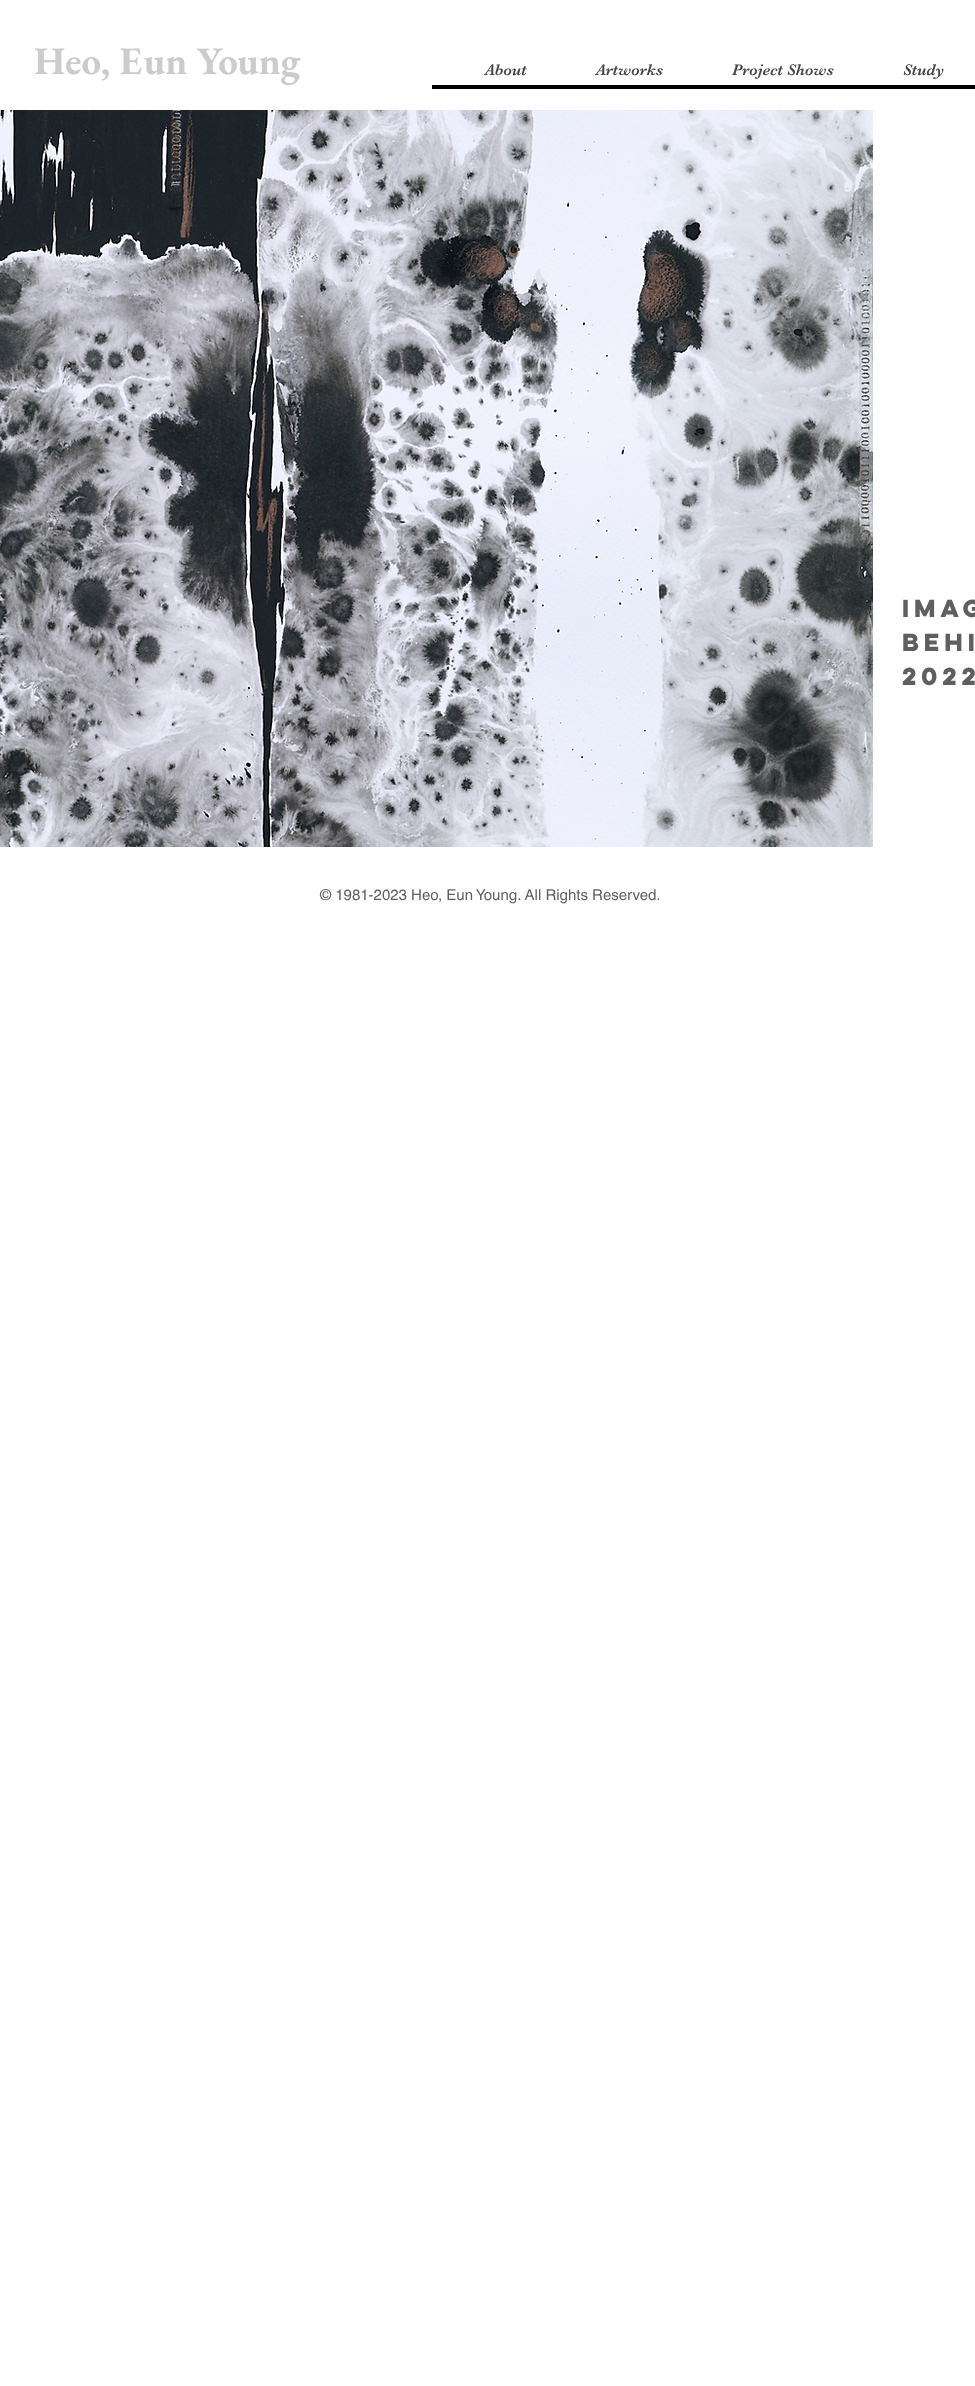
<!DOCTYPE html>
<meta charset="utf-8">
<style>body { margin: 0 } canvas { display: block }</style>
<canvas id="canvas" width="975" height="2386"></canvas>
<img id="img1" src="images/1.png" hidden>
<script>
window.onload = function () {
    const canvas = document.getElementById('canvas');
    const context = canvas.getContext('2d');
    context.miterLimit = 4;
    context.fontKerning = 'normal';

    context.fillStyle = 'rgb(255, 255, 255)';
    context.fillRect(0, 0, 975, 2386);
    context.fillStyle = 'rgb(0, 0, 0)';
    context.fillRect(432, 85, 543, 4);
    context.drawImage(document.getElementById('img1'), 0, 110, 873, 737);
    context.font = 'bold 39px EB Garamond';
    context.fillStyle = 'rgb(204, 204, 204)';
    context.fillText('Heo, Eun Young', 34, 74);
    context.font = '16px "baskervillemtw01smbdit"';
    context.fillStyle = 'rgb(68, 68, 68)';
    context.fillText('About', 485, 75);
    context.fillText('Artworks', 596, 75);
    context.fillText('Project Shows', 732, 75);
    context.fillText('Study', 903, 75);
    context.font = 'bold 22px "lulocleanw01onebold"';
    context.fillStyle = 'rgb(96, 94, 94)';
    context.fillText('Imag', 902, 617);
    context.fillText('behi', 902, 651);
    context.fillText('2022', 902, 685);
    context.font = '15px helvetica';
    context.fillText('© 1981-2023 Heo, Eun Young. All Rights Reserved.', 320, 900);
};
</script>
